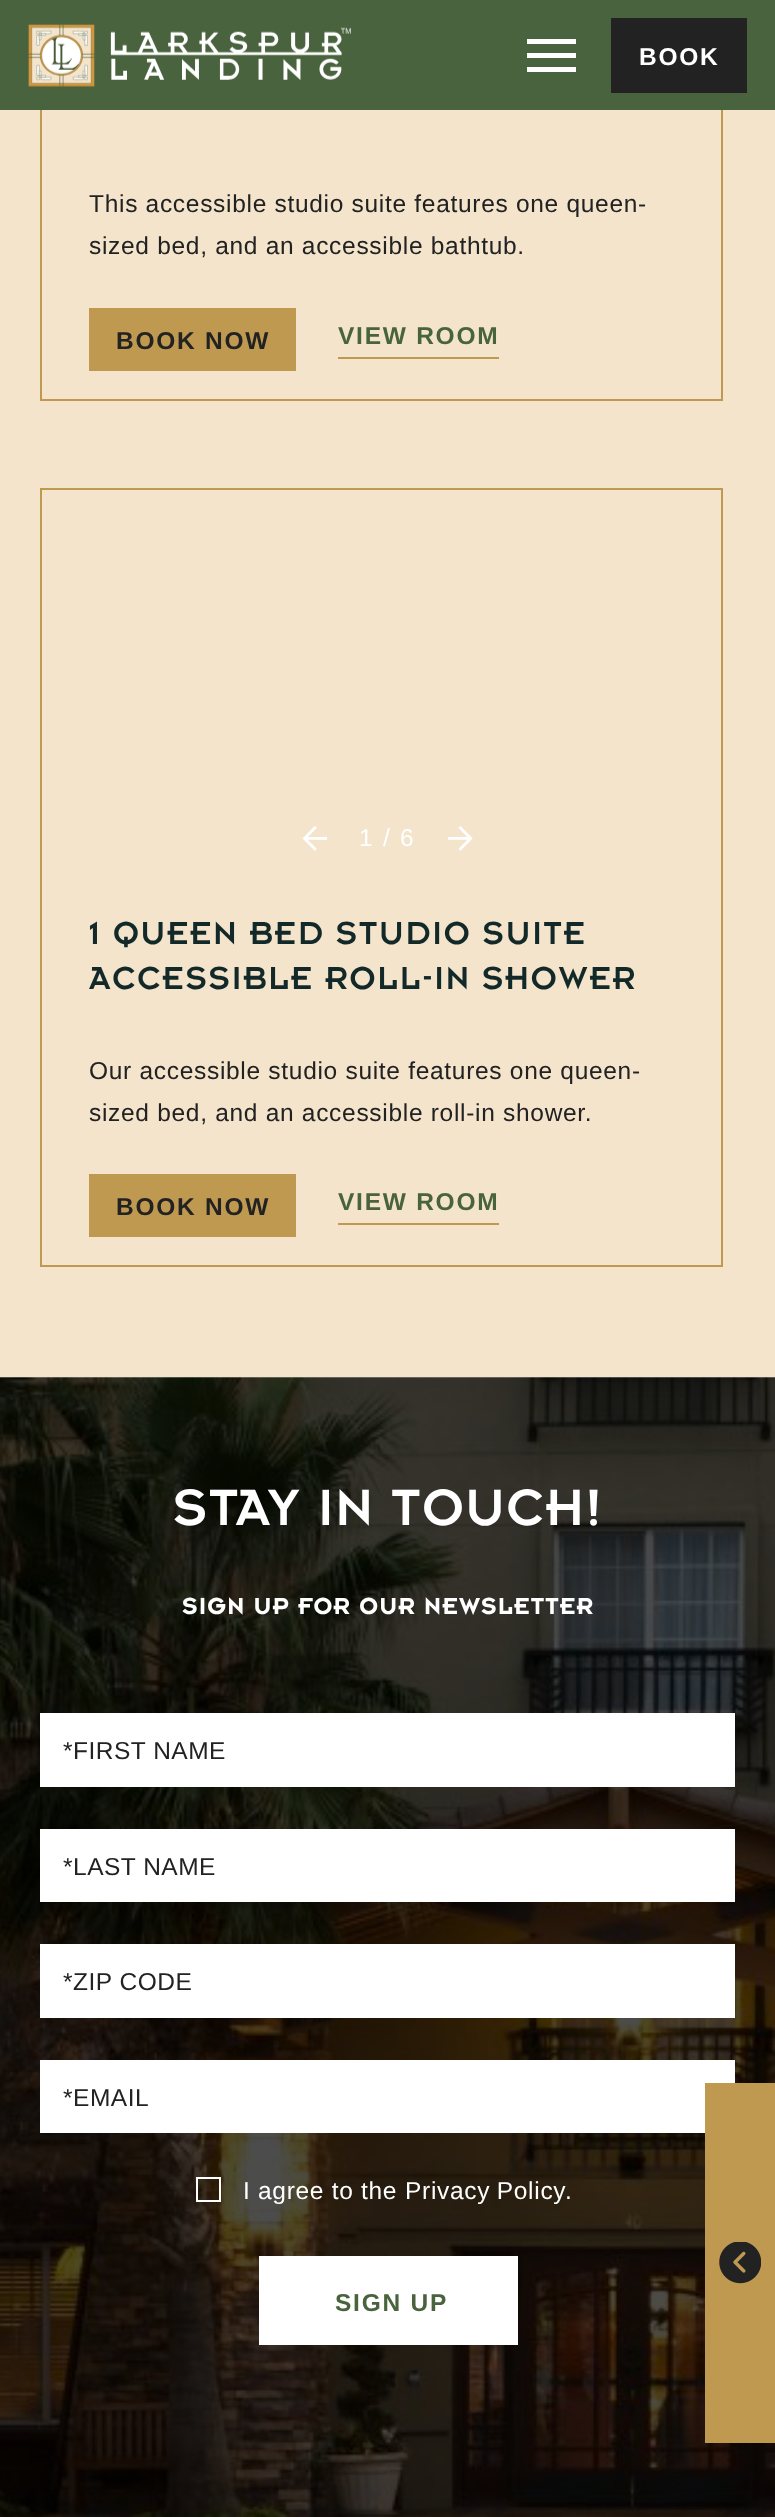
<!DOCTYPE html>
<meta charset="utf-8">
<style>body { margin: 0 } canvas { display: block }</style>
<canvas id="canvas" width="775" height="2517"></canvas>
<img id="img1" src="images/1.png" hidden>
<img id="img2" src="images/2.png" hidden>
<img id="img3" src="images/3.png" hidden>
<img id="img4" src="images/4.png" hidden>
<img id="img5" src="images/5.png" hidden>
<script>
window.onload = function () {
    const canvas = document.getElementById('canvas');
    const context = canvas.getContext('2d');
    context.miterLimit = 4;
    context.fontKerning = 'normal';

    context.fillStyle = 'rgb(255, 255, 255)';
    context.fillRect(0, 0, 775, 2517);
    context.fillStyle = 'rgb(243, 228, 203)';
    context.fillRect(0, 110, 775, 1267);
    context.strokeStyle = 'rgb(192, 153, 81)';
    context.lineWidth = 2;
    context.strokeRect(41, -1, 681, 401);
    context.fillStyle = 'rgb(72, 99, 61)';
    context.fillRect(0, 0, 775, 110);
    context.drawImage(document.getElementById('img1'), 28, 24, 323, 63);
    context.fillStyle = 'rgb(255, 255, 255)';
    context.fillRect(527, 39, 49, 5);
    context.fillRect(527, 53, 49, 5);
    context.fillRect(527, 67, 49, 5);
    context.fillStyle = 'rgb(34, 34, 34)';
    context.fillRect(611, 18, 136, 75);
    context.fillStyle = 'rgb(192, 153, 81)';
    context.fillRect(89, 308, 207, 63);
    context.fillRect(338, 357, 161, 2);
    context.strokeRect(41, 489, 681, 777);
    context.drawImage(document.getElementById('img2'), 302, 826, 25, 25);
    context.drawImage(document.getElementById('img3'), 448, 826, 25, 25);
    context.fillRect(89, 1174, 207, 63);
    context.fillRect(338, 1223, 161, 2);
    context.drawImage(document.getElementById('img4'), 0, 1377, 775, 1140);
    context.fillStyle = 'rgb(255, 255, 255)';
    context.fillRect(40, 1713, 695, 74);
    context.fillRect(40, 1829, 695, 73);
    context.fillRect(40, 1944, 695, 74);
    context.fillRect(40, 2060, 695, 73);
    context.strokeStyle = 'rgb(255, 255, 255)';
    context.strokeRect(197, 2178, 23, 23);
    context.fillRect(259, 2256, 259, 89);
    context.fillStyle = 'rgb(192, 153, 81)';
    context.fillRect(705, 2083, 70, 360);
    context.drawImage(document.getElementById('img5'), 719, 2242, 42, 42);
    context.letterSpacing = '1.75px';
    context.font = 'bold 24.5px Liberation Sans';
    context.fillStyle = 'rgb(255, 255, 255)';
    context.fillText('BOOK', 639, 65);
    context.letterSpacing = '0.7px';
    context.font = '24.5px Liberation Sans';
    context.fillStyle = 'rgb(34, 34, 34)';
    context.fillText('This accessible studio suite features one queen-', 89, 212);
    context.fillText('sized bed, and an accessible bathtub.', 89, 254);
    context.letterSpacing = '1.75px';
    context.font = 'bold 24.5px Liberation Sans';
    context.fillText('BOOK NOW', 116, 349);
    context.fillStyle = 'rgb(72, 99, 61)';
    context.fillText('VIEW ROOM', 338, 344);
    context.font = '24.5px Liberation Sans';
    context.fillStyle = 'rgb(255, 255, 255)';
    context.fillText('1 / 6', 359, 846);
    context.font = '35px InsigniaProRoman';
    context.fillStyle = 'rgb(19, 41, 41)';
    context.fillText('1 QUEEN BED STUDIO SUITE', 89, 944);
    context.fillText('ACCESSIBLE ROLL-IN SHOWER', 89, 989);
    context.letterSpacing = '0.7px';
    context.font = '24.5px Liberation Sans';
    context.fillStyle = 'rgb(34, 34, 34)';
    context.fillText('Our accessible studio suite features one queen-', 89, 1079);
    context.fillText('sized bed, and an accessible roll-in shower.', 89, 1121);
    context.letterSpacing = '1.75px';
    context.font = 'bold 24.5px Liberation Sans';
    context.fillText('BOOK NOW', 116, 1215);
    context.fillStyle = 'rgb(72, 99, 61)';
    context.fillText('VIEW ROOM', 338, 1210);
    context.font = '56px InsigniaProRoman';
    context.fillStyle = 'rgb(255, 255, 255)';
    context.fillText('STAY IN TOUCH!', 173, 1525);
    context.font = 'bold 24.5px InsigniaProRoman';
    context.fillText('SIGN UP FOR OUR NEWSLETTER', 182, 1614);
    context.letterSpacing = '0.5px';
    context.font = '24.5px Liberation Sans';
    context.fillStyle = 'rgb(34, 34, 34)';
    context.fillText('*FIRST NAME', 63, 1759);
    context.fillText('*LAST NAME', 63, 1875);
    context.fillText('*ZIP CODE', 63, 1990);
    context.fillText('*EMAIL', 63, 2106);
    context.letterSpacing = '0.7px';
    context.fillStyle = 'rgb(255, 255, 255)';
    context.fillText('I agree to the', 243, 2199);
    context.wordSpacing = '-1px';
    context.fillText('Privacy Policy', 405, 2199);
    context.wordSpacing = '0px';
    context.fillText('.', 565, 2199);
    context.letterSpacing = '1.75px';
    context.font = 'bold 24.5px Liberation Sans';
    context.fillStyle = 'rgb(72, 99, 61)';
    context.fillText('SIGN UP', 335, 2311);
};
</script>
